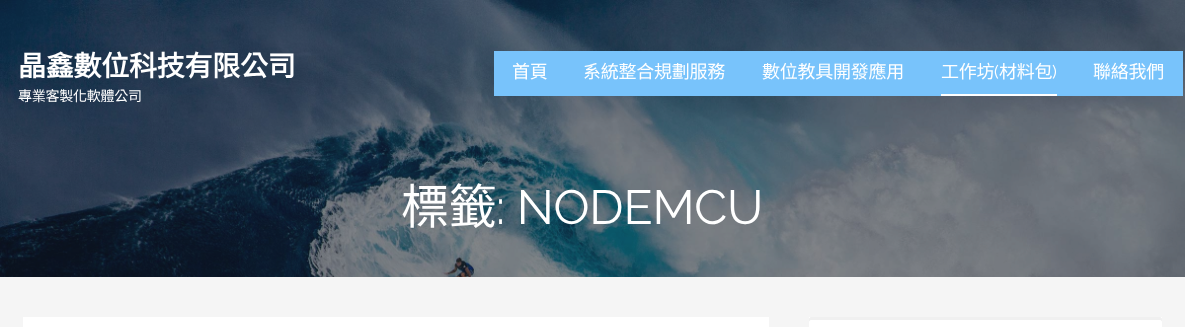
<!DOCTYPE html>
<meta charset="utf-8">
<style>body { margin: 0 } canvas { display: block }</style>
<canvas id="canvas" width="1185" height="327"></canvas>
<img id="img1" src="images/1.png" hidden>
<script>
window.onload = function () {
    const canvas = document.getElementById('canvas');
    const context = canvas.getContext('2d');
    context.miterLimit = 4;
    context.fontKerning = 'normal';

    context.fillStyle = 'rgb(245, 245, 245)';
    context.fillRect(0, 0, 1185, 327);
    context.drawImage(document.getElementById('img1'), 0, 0, 1185, 277);
    context.fillStyle = 'rgb(120, 195, 251)';
    context.fillRect(494, 51, 689, 45);
    context.fillStyle = 'rgb(255, 255, 255)';
    context.fillRect(941, 94, 116, 2);
    context.fillRect(23, 317, 746, 10);
    context.fillRect(809, 317, 353, 10);
    context.fillStyle = 'rgb(240, 240, 240)';
    context.beginPath();
    context.moveTo(811, 320);
    context.lineTo(1160, 320);
    context.bezierCurveTo(1161, 320, 1162, 321, 1162, 322);
    context.lineTo(1162, 319);
    context.bezierCurveTo(1162, 318, 1161, 317, 1160, 317);
    context.lineTo(811, 317);
    context.bezierCurveTo(810, 317, 809, 318, 809, 319);
    context.lineTo(809, 322);
    context.bezierCurveTo(809, 321, 810, 320, 811, 320);
    context.closePath();
    context.fill();
    context.letterSpacing = '-0.25px';
    context.font = 'bold 28px Noto Sans CJK TC';
    context.fillStyle = 'rgb(255, 255, 255)';
    context.fillText('晶鑫數位科技有限公司', 18, 76);
    context.font = '14px Noto Sans CJK TC';
    context.fillText('專業客製化軟體公司', 18, 101);
    context.font = '18px Noto Sans CJK TC';
    context.fillText('首頁', 512, 78);
    context.fillText('系統整合規劃服務', 583, 78);
    context.fillText('數位教具開發應用', 762, 78);
    context.fillText('工作坊', 941, 78);
    context.font = '18px Raleway';
    context.fillText('(', 994, 78);
    context.font = '18px Noto Sans CJK TC';
    context.fillText('材料包', 999, 78);
    context.font = '18px Raleway';
    context.fillText(')', 1052, 78);
    context.font = '18px Noto Sans CJK TC';
    context.fillText('聯絡我們', 1093, 78);
    context.font = '48px Noto Sans CJK TC';
    context.fillText('標籤', 401, 224);
    context.font = '48px Raleway';
    context.fillText(': NODEMCU', 496, 224);
};
</script>
